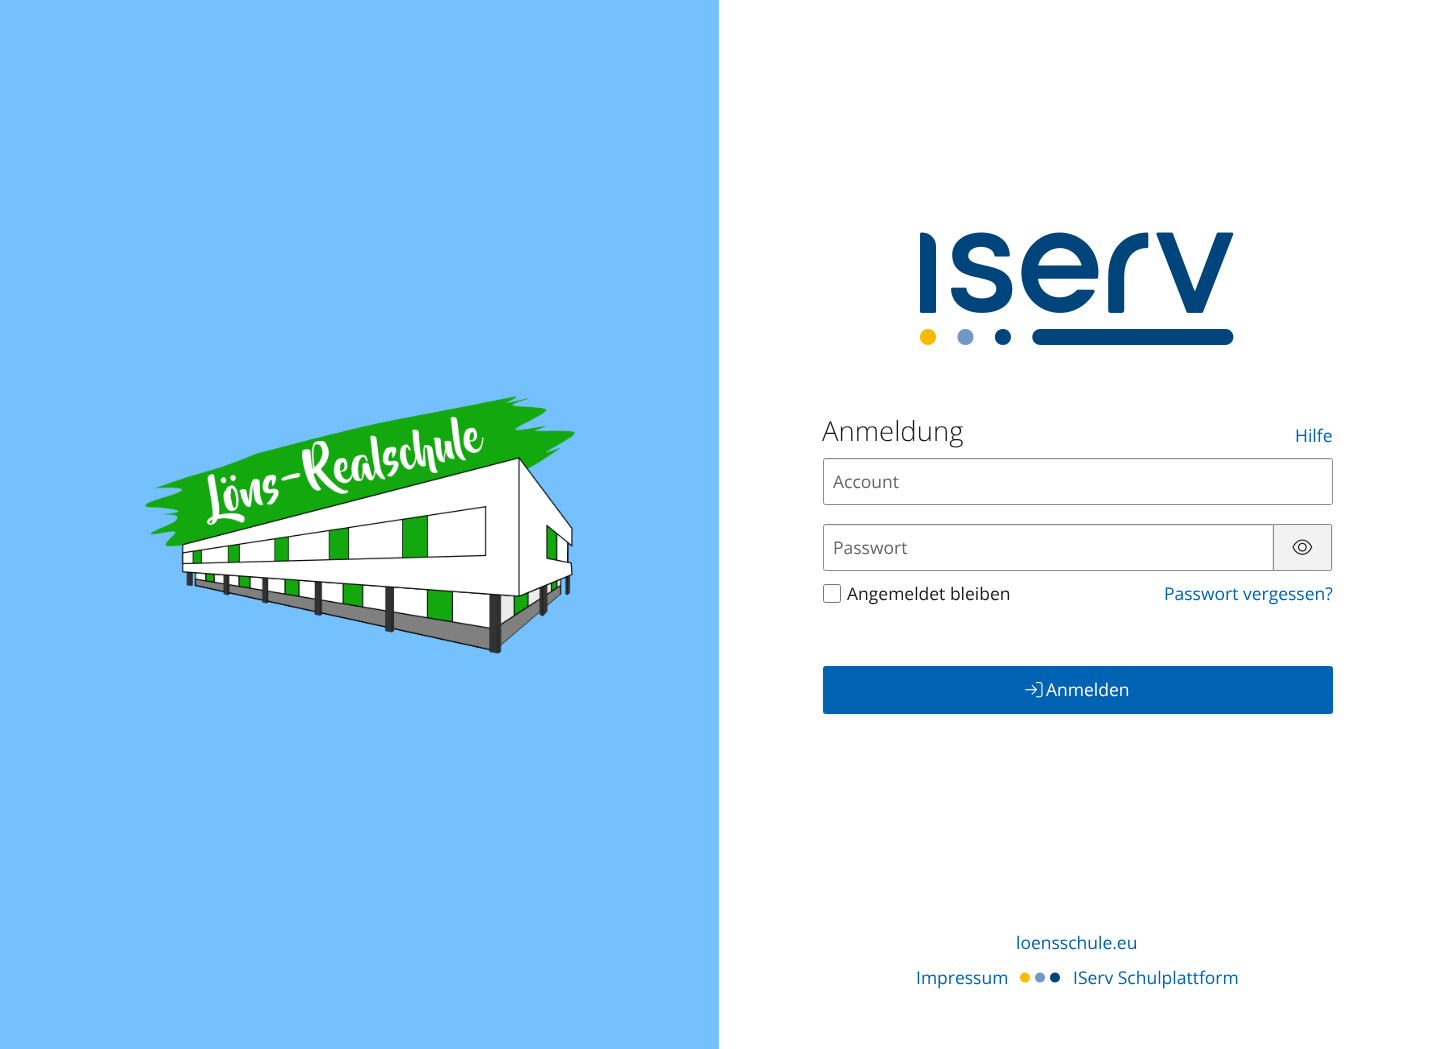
<!DOCTYPE html>
<meta charset="utf-8">
<style>body { margin: 0 } canvas { display: block }</style>
<canvas id="canvas" width="1436" height="1049"></canvas>
<img id="img1" src="images/1.png" hidden>
<img id="img2" src="images/2.png" hidden>
<img id="img3" src="images/3.png" hidden>
<img id="img4" src="images/4.png" hidden>
<img id="img5" src="images/5.png" hidden>
<img id="img6" src="images/6.png" hidden>
<img id="img7" src="images/7.png" hidden>
<script>
window.onload = function () {
    const canvas = document.getElementById('canvas');
    const context = canvas.getContext('2d');
    context.miterLimit = 4;
    context.fontKerning = 'normal';

    context.fillStyle = 'rgb(255, 255, 255)';
    context.fillRect(0, 0, 1436, 1049);
    context.fillStyle = 'rgb(117, 193, 255)';
    context.fillRect(0, 0, 719, 1049);
    context.drawImage(document.getElementById('img1'), 145, 396, 430, 258);
    context.drawImage(document.getElementById('img2'), 920, 232, 314, 113);
    context.fillStyle = 'rgb(236, 236, 236)';
    context.beginPath();
    context.moveTo(825, 460);
    context.lineTo(1330, 460);
    context.lineTo(1331, 461);
    context.bezierCurveTo(1331, 460, 1331, 459, 1330, 459);
    context.lineTo(825, 459);
    context.lineTo(824, 460);
    context.lineTo(824, 461);
    context.closePath();
    context.fill();
    context.beginPath();
    context.roundRect(823.5, 458.5, 509, 46, 2);
    context.strokeStyle = 'rgb(140, 140, 140)';
    context.stroke();
    context.beginPath();
    context.moveTo(825, 526);
    context.lineTo(1272, 526);
    context.lineTo(1272, 570);
    context.lineTo(1273, 570);
    context.lineTo(1273, 525);
    context.lineTo(824, 525);
    context.lineTo(824, 528);
    context.bezierCurveTo(824, 527, 824, 526, 825, 526);
    context.closePath();
    context.fill();
    context.beginPath();
    context.roundRect(823.5, 524.5, 450, 46, [2, 0, 0, 2]);
    context.stroke();
    context.fillStyle = 'rgb(242, 242, 242)';
    context.beginPath();
    context.roundRect(1274, 524, 59, 47, [0, 2.5, 2.5, 0]);
    context.fill();
    context.fillStyle = 'rgb(140, 140, 140)';
    context.fillRect(1274, 524, 57, 1);
    context.fillRect(1331, 525, 1, 45);
    context.fillRect(1274, 570, 57, 1);
    context.drawImage(document.getElementById('img3'), 1292, 539, 21, 16);
    context.beginPath();
    context.roundRect(823.5, 584.5, 17, 18, 2);
    context.strokeStyle = 'rgb(118, 118, 118)';
    context.stroke();
    context.fillStyle = 'rgba(0, 0, 0, 0.08)';
    context.filter = 'blur(2px)';
    context.beginPath();
    context.roundRect(823, 668, 510, 47, 2.5);
    context.fill();
    context.filter = 'none';
    context.fillStyle = 'rgb(0, 98, 179)';
    context.beginPath();
    context.roundRect(823.5, 666.5, 509, 47, 2);
    context.fill();
    context.strokeStyle = 'rgb(0, 98, 179)';
    context.stroke();
    context.drawImage(document.getElementById('img4'), 1025, 682, 18, 16);
    context.drawImage(document.getElementById('img5'), 1020, 972, 10, 11);
    context.drawImage(document.getElementById('img6'), 1035, 972, 10, 11);
    context.drawImage(document.getElementById('img7'), 1050, 972, 10, 11);
    context.font = '300 27.5px Open Sans';
    context.fillStyle = 'rgb(26, 26, 26)';
    context.fillText('Anmeldung', 822, 441);
    context.font = '17.5px Open Sans';
    context.fillStyle = 'rgb(0, 98, 179)';
    context.fillText('Hilfe', 1295, 442);
    context.fillStyle = 'rgb(102, 102, 102)';
    context.fillText('Account', 833, 488);
    context.fillText('Passwort', 833, 554);
    context.fillStyle = 'rgb(26, 26, 26)';
    context.fillText('Angemeldet bleiben', 847, 600);
    context.fillStyle = 'rgb(0, 98, 179)';
    context.fillText('Passwort vergessen?', 1164, 600);
    context.fillStyle = 'rgb(255, 255, 255)';
    context.fillText('Anmelden', 1046, 696);
    context.fillStyle = 'rgb(0, 98, 179)';
    context.fillText('loensschule.eu', 1016, 949);
    context.fillText('Impressum', 916, 984);
    context.fillText('IServ Schulplattform', 1073, 984);
};
</script>
